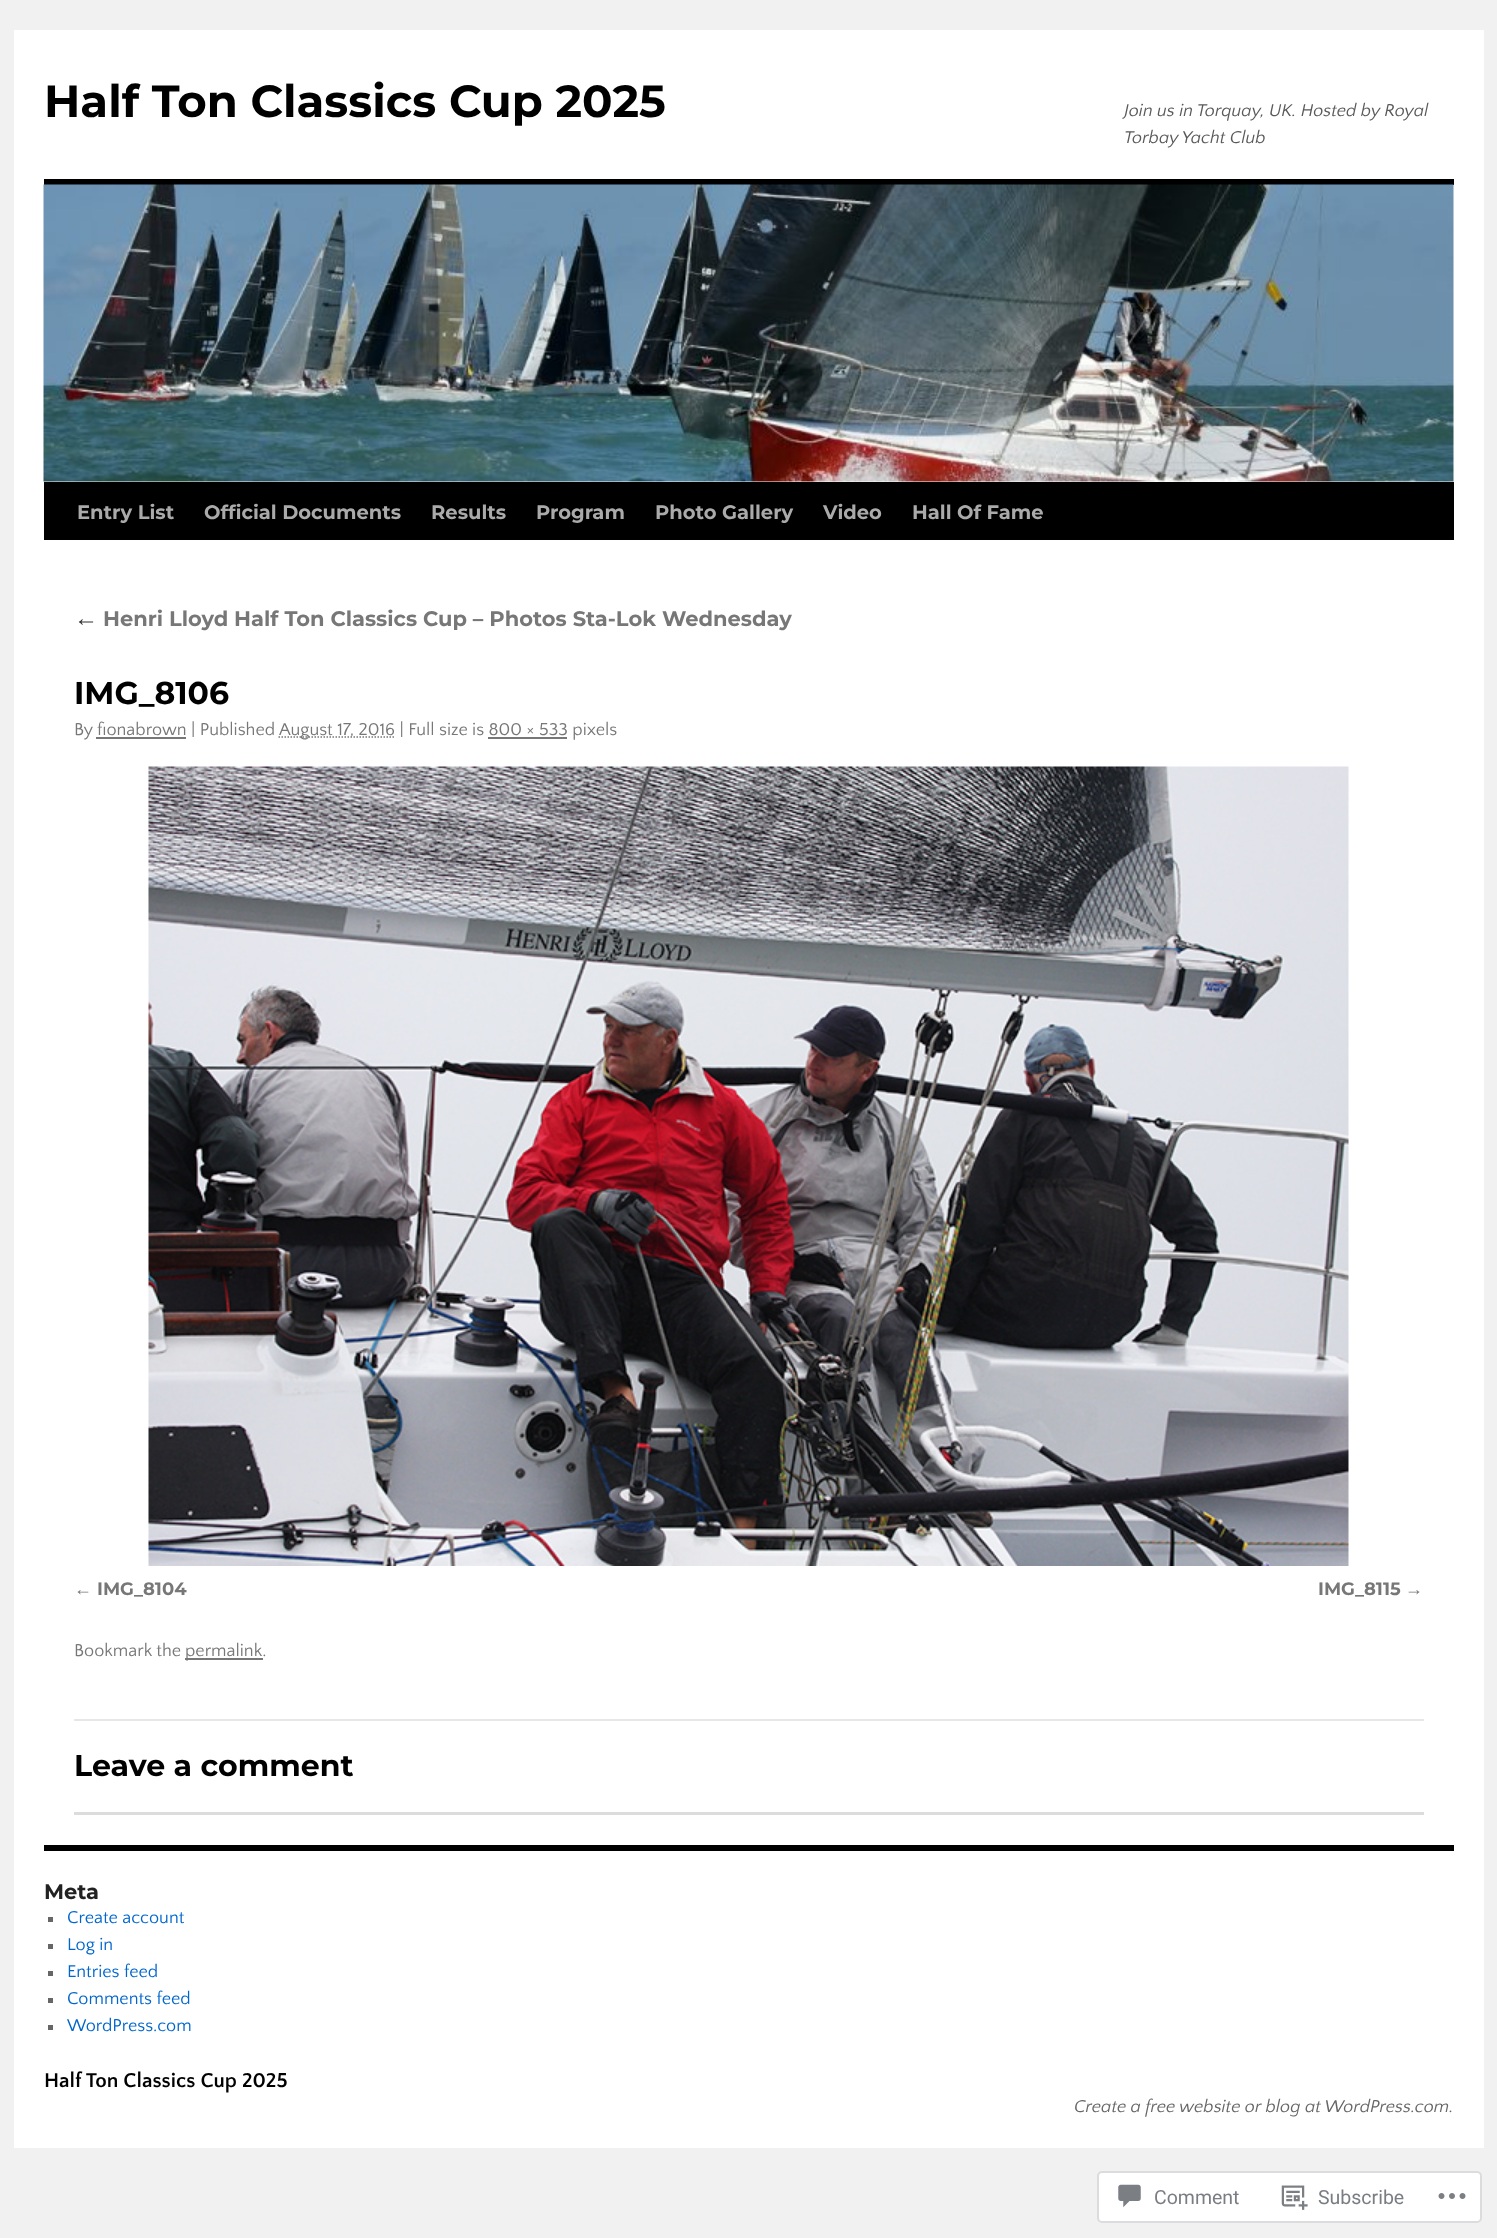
<!DOCTYPE html>
<meta charset="utf-8">
<style>body { margin: 0 } canvas { display: block }</style>
<canvas id="canvas" width="1497" height="2238"></canvas>
<img id="img1" src="images/1.png" hidden>
<img id="img2" src="images/2.png" hidden>
<img id="img3" src="images/3.png" hidden>
<img id="img4" src="images/4.png" hidden>
<img id="img5" src="images/5.png" hidden>
<script>
window.onload = function () {
    const canvas = document.getElementById('canvas');
    const context = canvas.getContext('2d');
    context.miterLimit = 4;
    context.fontKerning = 'normal';

    context.fillStyle = 'rgb(241, 241, 241)';
    context.fillRect(0, 0, 1497, 2238);
    context.fillStyle = 'rgb(255, 255, 255)';
    context.fillRect(14, 30, 1470, 2118);
    context.fillStyle = 'rgb(0, 0, 0)';
    context.fillRect(44, 179, 1410, 6);
    context.fillRect(44, 482, 1410, 58);
    context.drawImage(document.getElementById('img1'), 43, 184, 1411, 298);
    context.fillStyle = 'rgb(119, 119, 119)';
    context.fillRect(96, 737, 90, 2);
    context.beginPath();
    context.moveTo(278.5, 737);
    context.lineTo(394.5, 737);
    context.strokeStyle = 'rgb(119, 119, 119)';
    context.lineWidth = 1.5;
    context.setLineDash([1.5, 1.5]);
    context.stroke();
    context.fillRect(488, 737, 79, 2);
    context.drawImage(document.getElementById('img2'), 148, 766, 1201, 800);
    context.fillRect(185, 1658, 78, 2);
    context.fillStyle = 'rgb(231, 231, 231)';
    context.fillRect(74, 1719, 1350, 2);
    context.fillStyle = 'rgb(220, 220, 222)';
    context.fillRect(74, 1812, 1350, 3);
    context.fillStyle = 'rgb(0, 0, 0)';
    context.fillRect(44, 1845, 1410, 6);
    context.fillStyle = 'rgb(102, 102, 102)';
    context.fillRect(48, 1917, 5, 5);
    context.fillRect(48, 1944, 5, 5);
    context.fillRect(48, 1971, 5, 5);
    context.fillRect(48, 1998, 5, 5);
    context.fillRect(48, 2025, 5, 5);
    context.fillStyle = 'rgb(255, 255, 255)';
    context.beginPath();
    context.roundRect(1098, 2172, 383, 50, 4);
    context.fill();
    context.strokeStyle = 'rgb(220, 220, 222)';
    context.lineWidth = 2;
    context.setLineDash([]);
    context.stroke();
    context.drawImage(document.getElementById('img3'), 1118, 2184, 23, 24);
    context.drawImage(document.getElementById('img4'), 1281, 2185, 27, 25);
    context.drawImage(document.getElementById('img5'), 1438, 2193, 28, 6);
    context.font = '100 45px Montserrat';
    context.fillStyle = 'rgb(0, 0, 0)';
    context.fillText('Half Ton Classics Cup 2025', 44, 117);
    context.font = 'italic 18px Quattrocento Sans';
    context.fillStyle = 'rgb(89, 89, 89)';
    context.fillText('Join us in Torquay, UK. Hosted by Royal', 1124, 116);
    context.fillText('Torbay Yacht Club', 1124, 143);
    context.font = '100 19.5px Montserrat';
    context.fillStyle = 'rgb(170, 170, 170)';
    context.fillText('Entry List', 77, 519);
    context.fillText('Official Documents', 204, 519);
    context.fillText('Results', 431, 519);
    context.fillText('Program', 536, 519);
    context.fillText('Photo Gallery', 655, 519);
    context.fillText('Video', 823, 519);
    context.fillText('Hall Of Fame', 912, 519);
    context.font = 'bold 24px Liberation Sans';
    context.fillStyle = 'rgb(51, 51, 51)';
    context.fillText('←', 74, 626);
    context.font = '100 21px Montserrat';
    context.fillStyle = 'rgb(119, 119, 119)';
    context.fillText('Henri Lloyd Half Ton Classics Cup – Photos Sta-Lok Wednesday', 103, 626);
    context.font = '100 31.5px Montserrat';
    context.fillStyle = 'rgb(0, 0, 0)';
    context.fillText('IMG_8106', 74, 704);
    context.font = '18px Quattrocento Sans';
    context.fillStyle = 'rgb(119, 119, 119)';
    context.fillText('By', 74, 735);
    context.fillText('fionabrown | Published', 97, 735);
    context.fillText('August 17, 2016 | Full size is 800 × 533 pixels', 279, 735);
    context.font = 'bold 18px Liberation Sans';
    context.fillText('←', 74, 1595);
    context.font = '100 18px Montserrat';
    context.fillText('IMG_8104', 97, 1595);
    context.fillText('IMG_8115', 1318, 1595);
    context.font = 'bold 18px Liberation Sans';
    context.fillText('→', 1405, 1595);
    context.font = '18px Quattrocento Sans';
    context.fillText('Bookmark the', 74, 1656);
    context.fillText('permalink.', 185, 1656);
    context.font = '100 30px Montserrat';
    context.fillStyle = 'rgb(0, 0, 0)';
    context.fillText('Leave a comment', 74, 1776);
    context.font = '100 21px Montserrat';
    context.fillStyle = 'rgb(34, 34, 34)';
    context.fillText('Meta', 44, 1899);
    context.font = '18px Quattrocento Sans';
    context.fillStyle = 'rgb(0, 102, 204)';
    context.fillText('Create account', 67, 1923);
    context.fillText('Log in', 67, 1950);
    context.fillText('Entries feed', 67, 1977);
    context.fillText('Comments feed', 67, 2004);
    context.fillText('WordPress.com', 67, 2031);
    context.font = 'bold 21px Quattrocento Sans';
    context.fillStyle = 'rgb(0, 0, 0)';
    context.fillText('Half Ton Classics Cup 2025', 44, 2087);
    context.font = 'italic 18px Quattrocento Sans';
    context.fillStyle = 'rgb(102, 102, 102)';
    context.fillText('Create a free website or blog at WordPress.com.', 1074, 2112);
    context.font = '19.5px Roboto';
    context.fillStyle = 'rgb(122, 126, 132)';
    context.fillText('Comment', 1154, 2204);
    context.fillText('Subscribe', 1318, 2204);
};
</script>
